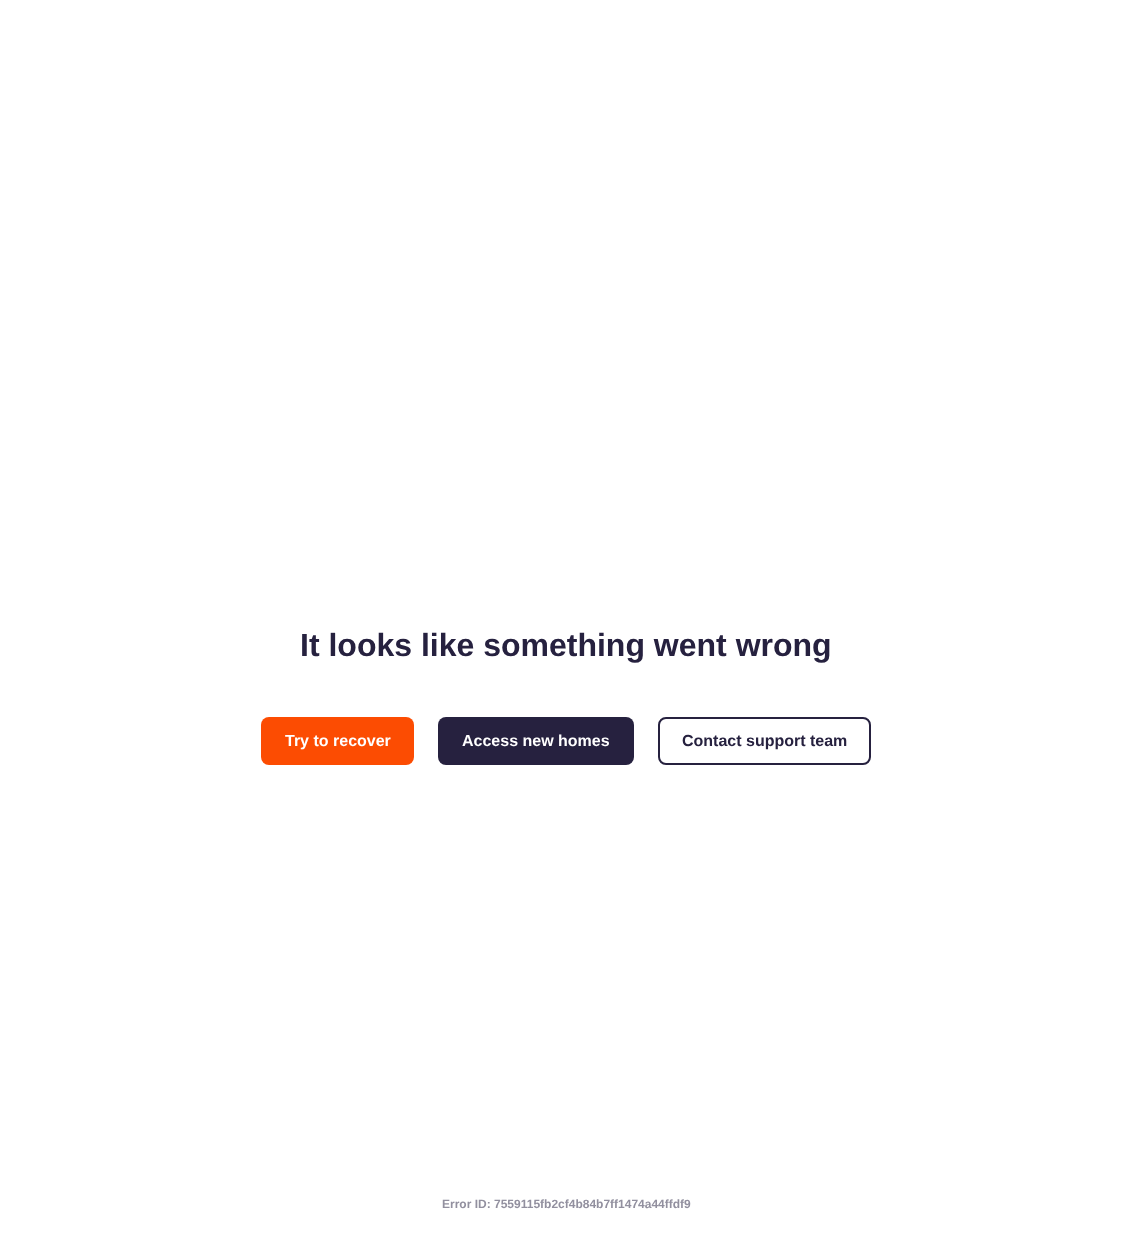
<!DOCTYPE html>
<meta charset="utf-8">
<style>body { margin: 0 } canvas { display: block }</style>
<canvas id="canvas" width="1132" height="1236"></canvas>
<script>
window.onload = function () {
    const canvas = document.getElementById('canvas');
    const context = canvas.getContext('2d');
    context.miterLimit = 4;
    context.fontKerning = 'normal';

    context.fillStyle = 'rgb(255, 255, 255)';
    context.fillRect(0, 0, 1132, 1236);
    context.fillStyle = 'rgb(252, 76, 2)';
    context.beginPath();
    context.roundRect(261, 717, 153, 48, 8);
    context.fill();
    context.fillStyle = 'rgb(38, 33, 63)';
    context.beginPath();
    context.roundRect(438, 717, 196, 48, 8);
    context.fill();
    context.beginPath();
    context.roundRect(659, 718, 211, 46, 7);
    context.strokeStyle = 'rgb(38, 33, 63)';
    context.lineWidth = 2;
    context.stroke();
    context.font = 'bold 32px Liberation Sans';
    context.fillText('It looks like something went wrong', 300, 656);
    context.font = 'bold 16px Liberation Sans';
    context.fillStyle = 'rgb(255, 255, 255)';
    context.fillText('Try to recover', 285, 746);
    context.fillText('Access new homes', 462, 746);
    context.fillStyle = 'rgb(38, 33, 63)';
    context.fillText('Contact support team', 682, 746);
    context.font = 'bold 12px Liberation Sans';
    context.fillStyle = 'rgb(146, 144, 159)';
    context.fillText('Error ID: 7559115fb2cf4b84b7ff1474a44ffdf9', 442, 1208);
};
</script>
